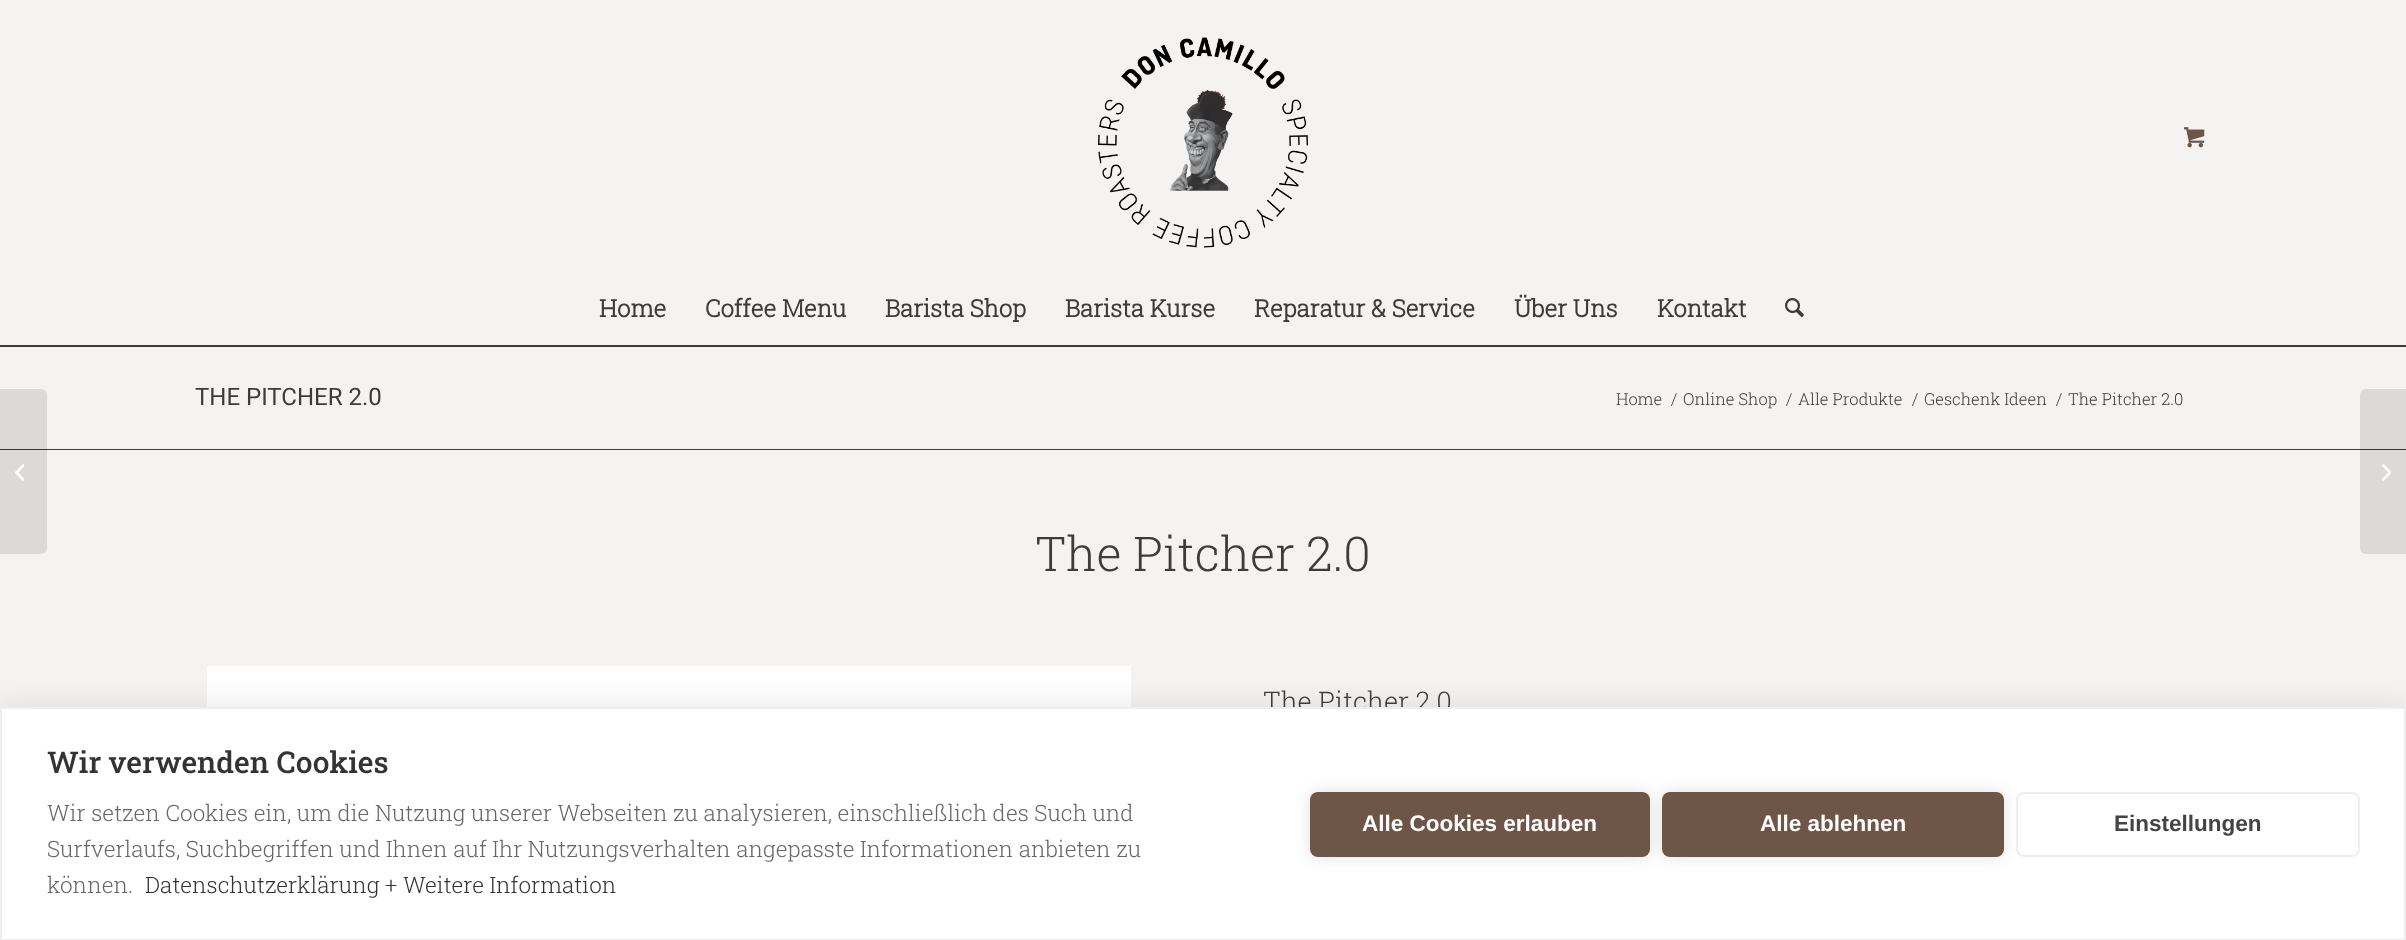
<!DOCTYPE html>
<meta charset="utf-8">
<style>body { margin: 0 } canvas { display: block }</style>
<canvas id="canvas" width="2406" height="940"></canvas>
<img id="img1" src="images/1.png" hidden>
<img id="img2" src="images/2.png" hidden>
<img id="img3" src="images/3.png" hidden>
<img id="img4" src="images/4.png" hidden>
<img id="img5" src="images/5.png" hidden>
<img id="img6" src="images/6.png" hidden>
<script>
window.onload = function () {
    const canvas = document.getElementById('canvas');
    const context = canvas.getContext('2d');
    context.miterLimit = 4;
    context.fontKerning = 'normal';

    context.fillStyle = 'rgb(245, 243, 242)';
    context.fillRect(0, 0, 2406, 940);
    context.drawImage(document.getElementById('img1'), 1098, 37, 210, 211);
    context.drawImage(document.getElementById('img2'), 2184, 127, 21, 21);
    context.drawImage(document.getElementById('img3'), 1785, 298, 19, 19);
    context.fillStyle = 'rgb(60, 60, 59)';
    context.fillRect(0, 449, 2406, 1);
    context.fillStyle = 'rgba(0, 0, 0, 0.1)';
    context.beginPath();
    context.roundRect(0, 389, 47, 165, [0, 6, 6, 0]);
    context.fill();
    context.drawImage(document.getElementById('img4'), 15, 464, 9, 17);
    context.fillStyle = 'rgb(60, 60, 59)';
    context.fillRect(0, 345, 2406, 2);
    context.drawImage(document.getElementById('img5'), 207, 666, 924, 41);
    context.fillStyle = 'rgba(0, 0, 0, 0.1)';
    context.beginPath();
    context.roundRect(2360, 389, 46, 165, [6, 0, 0, 6]);
    context.fill();
    context.drawImage(document.getElementById('img6'), 2382, 464, 9, 17);
    context.filter = 'blur(15px)';
    context.beginPath();
    context.rect(0, 707, 2406, 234);
    context.fill();
    context.filter = 'none';
    context.font = 'bold 24px Roboto Slab';
    context.fillStyle = 'rgb(60, 60, 59)';
    context.fillText('Home', 599, 317);
    context.fillText('Coffee Menu', 705, 317);
    context.fillText('Barista Shop', 885, 317);
    context.fillText('Barista Kurse', 1065, 317);
    context.fillText('Reparatur & Service', 1254, 317);
    context.fillText('Über Uns', 1514, 317);
    context.fillText('Kontakt', 1657, 317);
    context.font = '24px Roboto';
    context.fillText('THE PITCHER 2.0', 195, 405);
    context.font = '300 16.5px Roboto Slab';
    context.fillText('Home', 1616, 405);
    context.fillText('/', 1671, 405);
    context.fillText('Online Shop', 1683, 405);
    context.fillText('/', 1786, 405);
    context.fillText('Alle Produkte', 1798, 405);
    context.fillText('/', 1912, 405);
    context.fillText('Geschenk Ideen', 1924, 405);
    context.fillText('/', 2056, 405);
    context.fillText('The Pitcher 2.0', 2068, 405);
    context.font = '300 48px Roboto Slab';
    context.fillText('The Pitcher 2.0', 1035, 571);
    context.font = '300 27px Roboto Slab';
    context.fillText('The Pitcher 2.0', 1263, 711);
    context.fillStyle = 'rgb(255, 255, 255)';
    context.beginPath();
    context.rect(1, 708, 2404, 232);
    context.fill();
    context.strokeStyle = 'rgb(238, 238, 238)';
    context.lineWidth = 2;
    context.stroke();
    context.font = '500 30px Roboto Slab';
    context.fillStyle = 'rgb(51, 51, 51)';
    context.fillText('Wir verwenden Cookies', 47, 773);
    context.font = '300 22.5px Roboto Slab';
    context.fillStyle = 'rgb(102, 102, 102)';
    context.fillText('Wir setzen Cookies ein, um die Nutzung unserer Webseiten zu analysieren, einschließlich des Such und', 47, 821);
    context.fillText('Surfverlaufs, Suchbegriffen und Ihnen auf Ihr Nutzungsverhalten angepasste Informationen anbieten zu', 47, 857);
    context.fillText('können.', 47, 893);
    context.fillStyle = 'rgb(51, 51, 51)';
    context.fillText('Datenschutzerklärung + Weitere Information', 145, 893);
    context.fillStyle = 'rgba(0, 0, 0, 0.12)';
    context.filter = 'blur(7.5px)';
    context.beginPath();
    context.roundRect(1310, 792, 340, 65, 8);
    context.fill();
    context.filter = 'none';
    context.fillStyle = 'rgb(109, 86, 72)';
    context.beginPath();
    context.roundRect(1310, 792, 340, 65, 8);
    context.fill();
    context.font = 'bold 22.5px Liberation Sans';
    context.fillStyle = 'rgb(255, 255, 255)';
    context.fillText('Alle Cookies erlauben', 1362, 831);
    context.fillStyle = 'rgba(0, 0, 0, 0.12)';
    context.filter = 'blur(7.5px)';
    context.beginPath();
    context.roundRect(1662, 792, 342, 65, 8);
    context.fill();
    context.filter = 'none';
    context.fillStyle = 'rgb(109, 86, 72)';
    context.beginPath();
    context.roundRect(1662, 792, 342, 65, 8);
    context.fill();
    context.fillStyle = 'rgb(255, 255, 255)';
    context.fillText('Alle ablehnen', 1760, 831);
    context.beginPath();
    context.roundRect(2017, 793, 342, 63, 7);
    context.stroke();
    context.fillStyle = 'rgb(68, 68, 68)';
    context.fillText('Einstellungen', 2114, 831);
};
</script>
